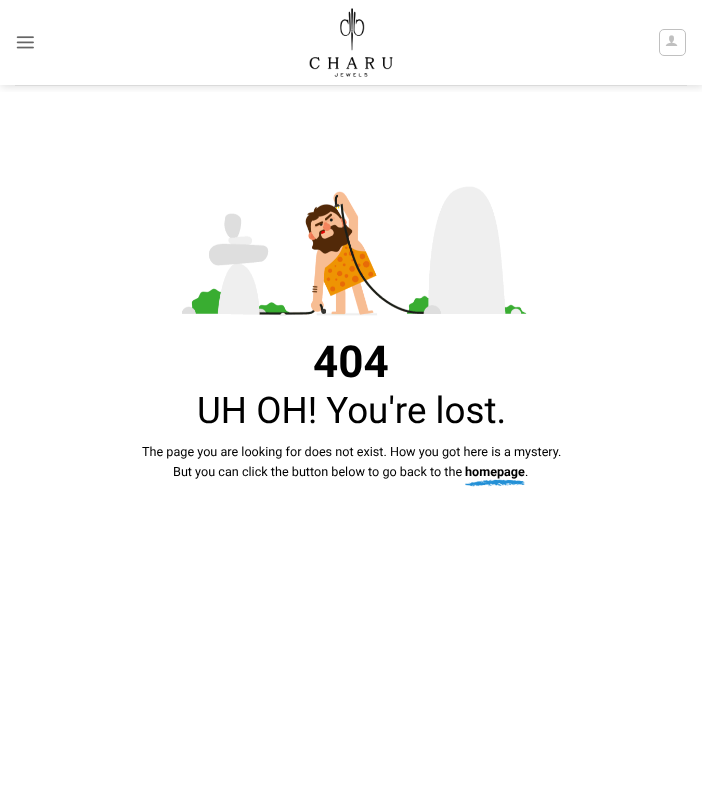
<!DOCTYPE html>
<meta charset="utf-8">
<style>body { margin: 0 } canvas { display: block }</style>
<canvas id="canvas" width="702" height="796"></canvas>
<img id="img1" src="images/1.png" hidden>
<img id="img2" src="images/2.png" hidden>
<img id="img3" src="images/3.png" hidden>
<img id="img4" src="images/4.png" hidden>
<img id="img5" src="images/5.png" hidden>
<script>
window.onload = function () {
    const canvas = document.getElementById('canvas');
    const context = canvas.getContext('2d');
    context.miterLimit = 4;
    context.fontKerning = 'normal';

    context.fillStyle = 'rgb(255, 255, 255)';
    context.fillRect(0, 0, 702, 796);
    context.save();
    context.beginPath();
    context.rect(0, 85, 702, 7);
    context.clip();
    context.fillStyle = 'rgba(0, 0, 0, 0.15)';
    context.filter = 'blur(5px)';
    context.beginPath();
    context.rect(1, 1, 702, 85);
    context.fill();
    context.filter = 'none';
    context.restore();
    context.drawImage(document.getElementById('img1'), 16, 36, 18, 13);
    context.drawImage(document.getElementById('img2'), 309, 8, 84, 69);
    context.beginPath();
    context.roundRect(659.5, 29.5, 26, 26, 4.5);
    context.strokeStyle = 'rgb(192, 192, 192)';
    context.stroke();
    context.drawImage(document.getElementById('img3'), 665, 35, 13, 11);
    context.fillStyle = 'rgb(218, 218, 218)';
    context.fillRect(15, 85, 672, 1);
    context.drawImage(document.getElementById('img4'), 182, 186, 345, 130);
    context.drawImage(document.getElementById('img5'), 465, 479, 60, 8);
    context.font = 'bold 44px Roboto';
    context.fillStyle = 'rgb(0, 0, 0)';
    context.fillText('404', 313, 377);
    context.font = '36.75px Roboto';
    context.fillText('UH OH! You\'re lost.', 197, 423);
    context.font = '12.65px Roboto';
    context.fillText('The page you are looking for does not exist. How you got here is a mystery.', 142, 456);
    context.fillText('But you can click the button below to go back to the', 173, 476);
    context.font = 'bold 12.65px Roboto';
    context.fillText('homepage', 465, 476);
    context.font = '12.65px Roboto';
    context.fillText('.', 525, 476);
};
</script>
